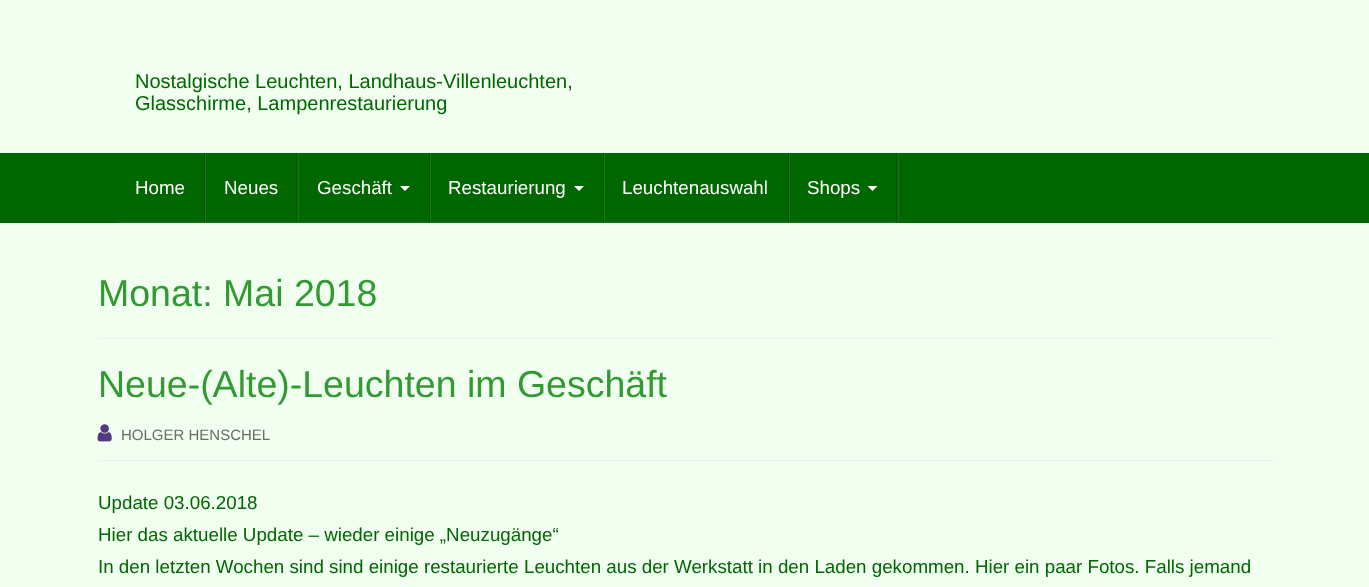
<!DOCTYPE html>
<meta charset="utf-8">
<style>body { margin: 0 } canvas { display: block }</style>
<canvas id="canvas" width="1369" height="587"></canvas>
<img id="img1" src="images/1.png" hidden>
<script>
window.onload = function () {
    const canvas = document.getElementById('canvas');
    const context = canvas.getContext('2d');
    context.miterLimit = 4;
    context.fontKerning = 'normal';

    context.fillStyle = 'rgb(240, 255, 240)';
    context.fillRect(0, 0, 1369, 587);
    context.fillStyle = 'rgb(0, 102, 0)';
    context.fillRect(0, 153, 1369, 70);
    context.fillStyle = 'rgb(26, 117, 26)';
    context.beginPath();
    context.moveTo(118, 222);
    context.lineTo(118, 223);
    context.lineTo(206, 223);
    context.lineTo(206, 153);
    context.lineTo(205, 153);
    context.lineTo(205, 222);
    context.closePath();
    context.fill();
    context.fillStyle = 'rgba(0, 0, 0, 0.2)';
    context.fillRect(204, 153, 1, 70);
    context.fillStyle = 'rgb(26, 117, 26)';
    context.beginPath();
    context.moveTo(206, 222);
    context.lineTo(206, 223);
    context.lineTo(299, 223);
    context.lineTo(299, 153);
    context.lineTo(298, 153);
    context.lineTo(298, 222);
    context.closePath();
    context.fill();
    context.fillStyle = 'rgba(0, 0, 0, 0.2)';
    context.fillRect(296, 153, 1, 70);
    context.fillStyle = 'rgb(26, 117, 26)';
    context.beginPath();
    context.moveTo(299, 222);
    context.lineTo(299, 223);
    context.lineTo(431, 223);
    context.lineTo(431, 153);
    context.lineTo(430, 153);
    context.lineTo(430, 222);
    context.closePath();
    context.fill();
    context.fillStyle = 'rgba(0, 0, 0, 0.2)';
    context.fillRect(429, 153, 1, 70);
    context.fillStyle = 'rgb(255, 255, 255)';
    context.beginPath();
    context.moveTo(400, 186);
    context.lineTo(410, 186);
    context.lineTo(405, 191);
    context.closePath();
    context.fill();
    context.fillStyle = 'rgb(26, 117, 26)';
    context.beginPath();
    context.moveTo(431, 222);
    context.lineTo(431, 223);
    context.lineTo(605, 223);
    context.lineTo(605, 153);
    context.lineTo(604, 153);
    context.lineTo(604, 222);
    context.closePath();
    context.fill();
    context.fillStyle = 'rgba(0, 0, 0, 0.2)';
    context.fillRect(603, 153, 1, 70);
    context.fillStyle = 'rgb(255, 255, 255)';
    context.beginPath();
    context.moveTo(574, 186);
    context.lineTo(584, 186);
    context.lineTo(579, 191);
    context.closePath();
    context.fill();
    context.fillStyle = 'rgb(26, 117, 26)';
    context.beginPath();
    context.moveTo(605, 222);
    context.lineTo(605, 223);
    context.lineTo(790, 223);
    context.lineTo(790, 153);
    context.lineTo(789, 153);
    context.lineTo(789, 222);
    context.closePath();
    context.fill();
    context.fillStyle = 'rgba(0, 0, 0, 0.2)';
    context.fillRect(788, 153, 1, 70);
    context.fillStyle = 'rgb(26, 117, 26)';
    context.beginPath();
    context.moveTo(790, 222);
    context.lineTo(790, 223);
    context.lineTo(899, 223);
    context.lineTo(899, 153);
    context.lineTo(898, 153);
    context.lineTo(898, 222);
    context.closePath();
    context.fill();
    context.fillStyle = 'rgba(0, 0, 0, 0.2)';
    context.fillRect(896, 153, 1, 70);
    context.fillStyle = 'rgb(255, 255, 255)';
    context.beginPath();
    context.moveTo(867.5, 186);
    context.lineTo(877.5, 186);
    context.lineTo(872.5, 191);
    context.closePath();
    context.fill();
    context.fillStyle = 'rgb(238, 238, 238)';
    context.fillRect(98, 338, 1175, 1);
    context.fillRect(98, 460, 1175, 1);
    context.drawImage(document.getElementById('img1'), 97, 424, 15, 18);
    context.font = '20px Liberation Sans';
    context.fillStyle = 'rgb(0, 102, 0)';
    context.fillText('Nostalgische Leuchten, Landhaus-Villenleuchten,', 135, 88);
    context.fillText('Glasschirme, Lampenrestaurierung', 135, 110);
    context.font = '18.75px Liberation Sans';
    context.fillStyle = 'rgb(255, 255, 255)';
    context.fillText('Home', 135, 194);
    context.fillText('Neues', 224, 194);
    context.fillText('Geschäft', 317, 194);
    context.fillText('Restaurierung', 448, 194);
    context.fillText('Leuchtenauswahl', 622, 194);
    context.fillText('Shops', 807, 194);
    context.font = '37.5px Liberation Sans';
    context.fillStyle = 'rgb(51, 153, 51)';
    context.fillText('Monat: Mai 2018', 98, 306);
    context.fillText('Neue-(Alte)-Leuchten im Geschäft', 98, 397);
    context.font = '15px Liberation Sans';
    context.fillStyle = 'rgb(107, 107, 107)';
    context.fillText('HOLGER HENSCHEL', 121, 440);
    context.font = '18.75px Liberation Sans';
    context.fillStyle = 'rgb(0, 102, 0)';
    context.fillText('Update 03.06.2018', 98, 509);
    context.fillText('Hier das aktuelle Update – wieder einige „Neuzugänge“', 98, 541);
    context.fillText('In den letzten Wochen sind sind einige restaurierte Leuchten aus der Werkstatt in den Laden gekommen. Hier ein paar Fotos. Falls jemand', 98, 573);
};
</script>
